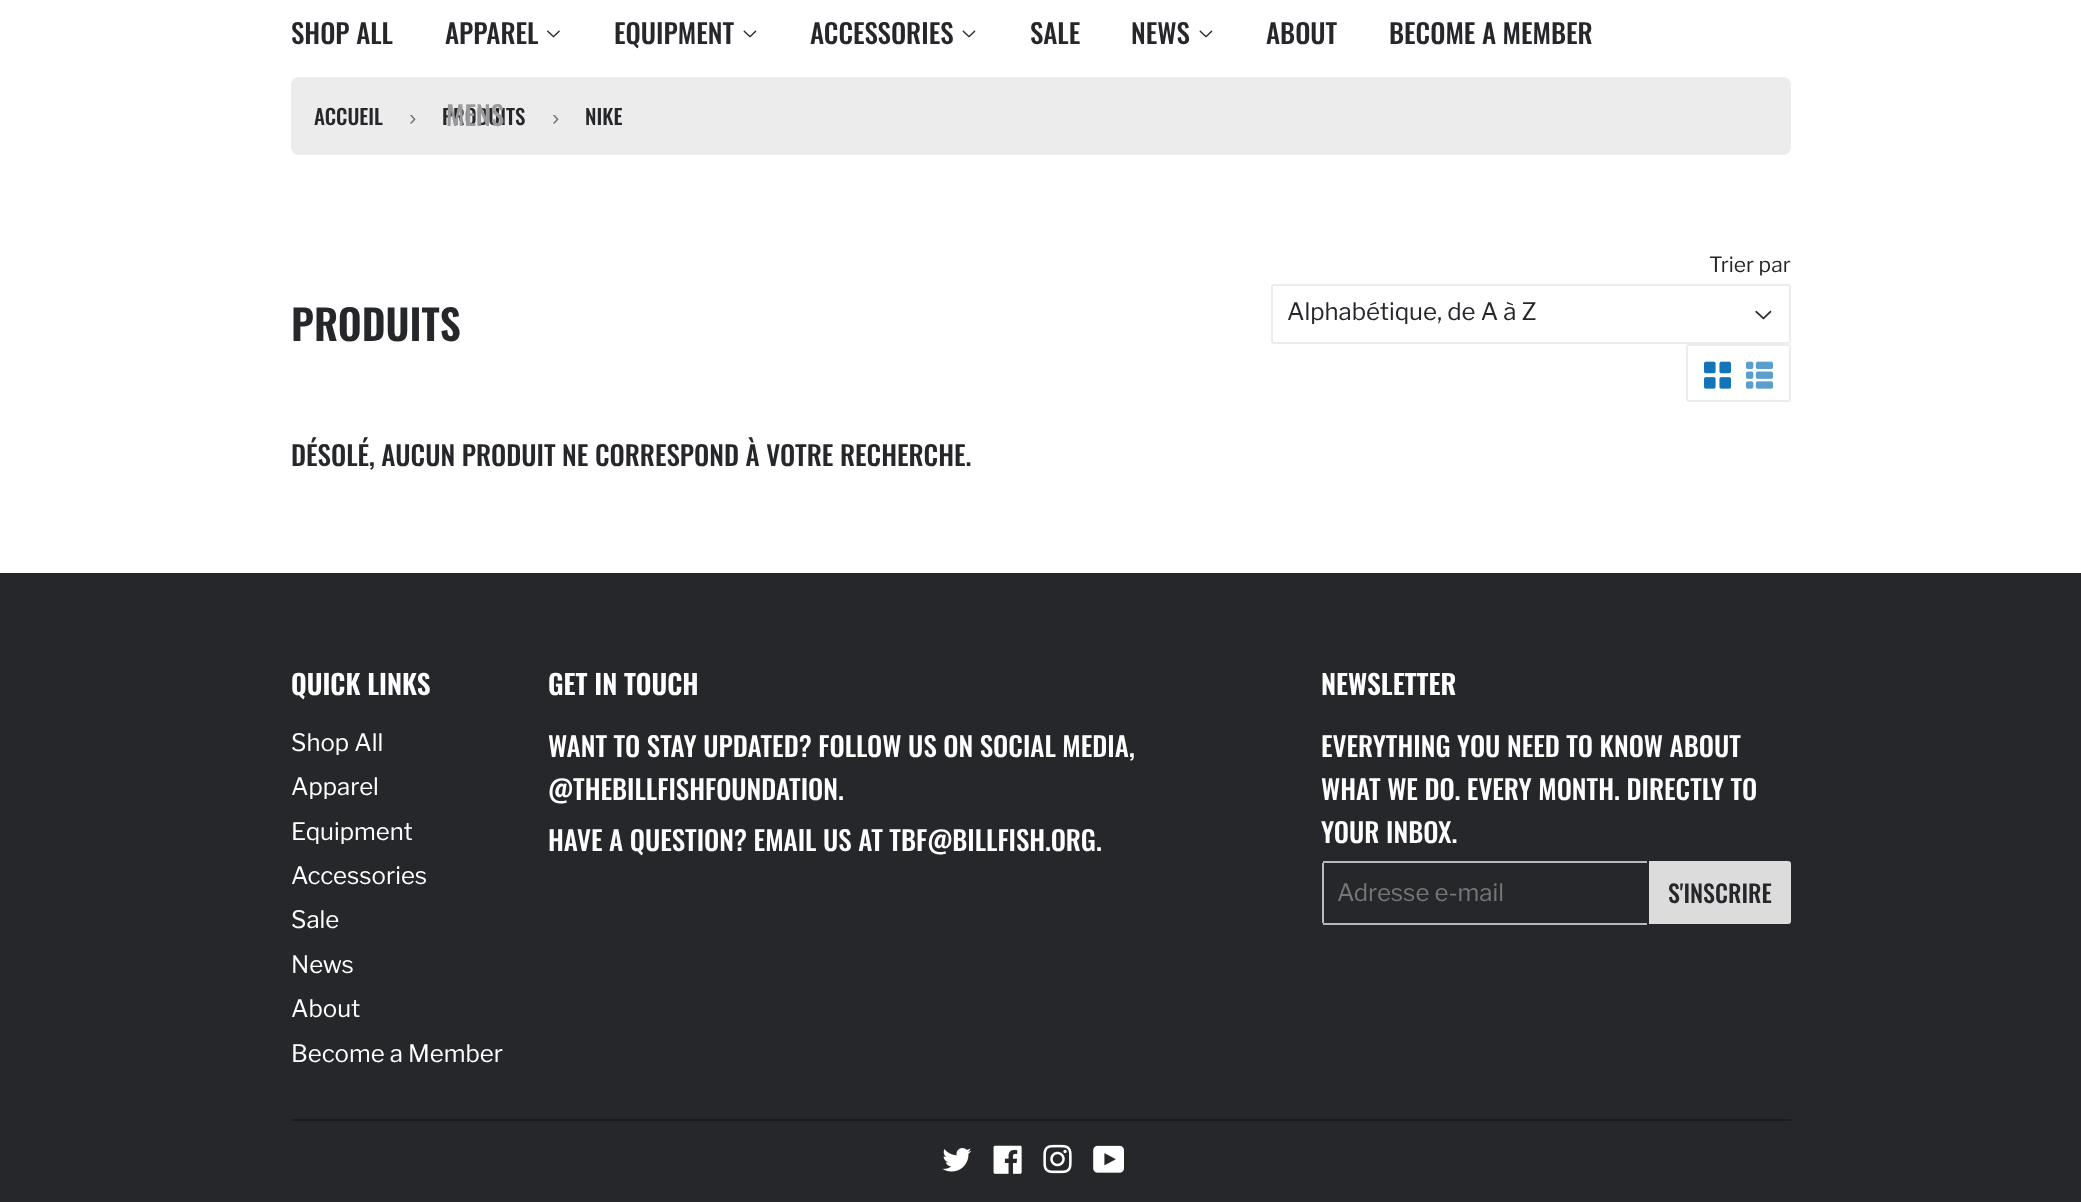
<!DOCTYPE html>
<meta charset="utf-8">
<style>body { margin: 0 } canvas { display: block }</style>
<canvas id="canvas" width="2081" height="1202"></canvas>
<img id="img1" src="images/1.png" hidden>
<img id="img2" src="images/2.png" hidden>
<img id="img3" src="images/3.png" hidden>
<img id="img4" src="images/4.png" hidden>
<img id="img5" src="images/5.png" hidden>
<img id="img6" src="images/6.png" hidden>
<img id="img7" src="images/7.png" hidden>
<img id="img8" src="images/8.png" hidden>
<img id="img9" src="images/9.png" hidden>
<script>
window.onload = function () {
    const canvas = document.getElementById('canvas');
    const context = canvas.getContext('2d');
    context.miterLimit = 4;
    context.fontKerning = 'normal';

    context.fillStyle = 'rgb(255, 255, 255)';
    context.fillRect(0, 0, 2081, 1202);
    context.drawImage(document.getElementById('img1'), 547, 30, 13, 8);
    context.drawImage(document.getElementById('img2'), 743, 30, 14, 8);
    context.drawImage(document.getElementById('img2'), 962, 30, 14, 8);
    context.drawImage(document.getElementById('img2'), 1199, 30, 14, 8);
    context.fillStyle = 'rgb(236, 236, 236)';
    context.beginPath();
    context.roundRect(291, 77, 1500, 78, 8);
    context.fill();
    context.drawImage(document.getElementById('img3'), 1755, 310, 17, 10);
    context.beginPath();
    context.roundRect(1272, 285, 518, 58, 2);
    context.strokeStyle = 'rgb(236, 236, 236)';
    context.lineWidth = 2;
    context.stroke();
    context.beginPath();
    context.roundRect(1687, 345, 103, 56, 2);
    context.stroke();
    context.drawImage(document.getElementById('img4'), 1704, 361, 27, 28);
    context.drawImage(document.getElementById('img5'), 1746, 361, 27, 28);
    context.fillStyle = 'rgb(38, 39, 43)';
    context.fillRect(0, 573, 2081, 629);
    context.fillStyle = 'rgb(185, 185, 185)';
    context.fillRect(1323, 861, 324, 2);
    context.fillRect(1323, 923, 324, 2);
    context.fillRect(1322, 863, 2, 60);
    context.fillStyle = 'rgb(220, 220, 220)';
    context.beginPath();
    context.roundRect(1649, 861, 142, 63, [0, 3, 3, 0]);
    context.fill();
    context.fillStyle = 'rgb(26, 27, 29)';
    context.fillRect(291, 1119, 1500, 2);
    context.drawImage(document.getElementById('img6'), 942, 1148, 30, 24);
    context.drawImage(document.getElementById('img7'), 993, 1145, 29, 29);
    context.drawImage(document.getElementById('img8'), 1043, 1144, 29, 30);
    context.drawImage(document.getElementById('img9'), 1093, 1145, 31, 28);
    context.font = '500 27px Oswald';
    context.fillStyle = 'rgb(38, 39, 43)';
    context.fillText('SHOP ALL', 291, 44);
    context.fillText('APPAREL', 445, 44);
    context.fillText('EQUIPMENT', 614, 44);
    context.fillText('ACCESSORIES', 810, 44);
    context.fillText('SALE', 1030, 44);
    context.fillText('NEWS', 1131, 44);
    context.fillText('ABOUT', 1266, 44);
    context.fillText('BECOME A MEMBER', 1389, 44);
    context.font = '500 21px Oswald';
    context.fillText('ACCUEIL', 314, 125);
    context.font = '22px Liberation Sans';
    context.fillStyle = 'rgb(118, 118, 118)';
    context.fillText('›', 409, 125);
    context.font = '500 21px Oswald';
    context.fillStyle = 'rgb(38, 39, 43)';
    context.fillText('PRODUITS', 442, 125);
    context.font = '500 27px Oswald';
    context.fillStyle = 'rgb(154, 154, 156)';
    context.fillText('MENS', 446, 126);
    context.font = '22px Liberation Sans';
    context.fillStyle = 'rgb(118, 118, 118)';
    context.fillText('›', 552, 125);
    context.font = '500 21px Oswald';
    context.fillStyle = 'rgb(38, 39, 43)';
    context.fillText('NIKE', 585, 125);
    context.font = '600 41.5px Oswald';
    context.fillText('PRODUITS', 291, 341);
    context.font = '21px Libre Franklin';
    context.fillText('Trier par', 1709, 272);
    context.font = '24px Libre Franklin';
    context.fillText('Alphabétique, de A à Z', 1287, 320);
    context.font = '500 27px Oswald';
    context.fillText('DÉSOLÉ, AUCUN PRODUIT NE CORRESPOND À VOTRE RECHERCHE.', 291, 466);
    context.font = '600 27.25px Oswald';
    context.fillStyle = 'rgb(255, 255, 255)';
    context.fillText('QUICK LINKS', 291, 695);
    context.font = '24px Libre Franklin';
    context.fillText('Shop All', 291, 751);
    context.fillText('Apparel', 291, 795);
    context.fillText('Equipment', 291, 840);
    context.fillText('Accessories', 291, 884);
    context.fillText('Sale', 291, 928);
    context.fillText('News', 291, 973);
    context.fillText('About', 291, 1017);
    context.fillText('Become a Member', 291, 1062);
    context.font = '600 27.25px Oswald';
    context.fillText('GET IN TOUCH', 548, 695);
    context.font = '500 27px Oswald';
    context.fillText('WANT TO STAY UPDATED? FOLLOW US ON SOCIAL MEDIA,', 548, 757);
    context.fillText('@THEBILLFISHFOUNDATION.', 548, 800);
    context.fillText('HAVE A QUESTION? EMAIL US AT TBF@BILLFISH.ORG.', 548, 851);
    context.font = '600 27.25px Oswald';
    context.fillText('NEWSLETTER', 1321, 695);
    context.font = '500 27px Oswald';
    context.fillText('EVERYTHING YOU NEED TO KNOW ABOUT', 1321, 757);
    context.fillText('WHAT WE DO. EVERY MONTH. DIRECTLY TO', 1321, 800);
    context.fillText('YOUR INBOX.', 1321, 843);
    context.font = '24px Libre Franklin';
    context.fillStyle = 'rgb(118, 118, 118)';
    context.fillText('Adresse e-mail', 1337, 901);
    context.font = '500 24px Oswald';
    context.fillStyle = 'rgb(38, 39, 43)';
    context.fillText('S\'INSCRIRE', 1668, 903);
};
</script>
